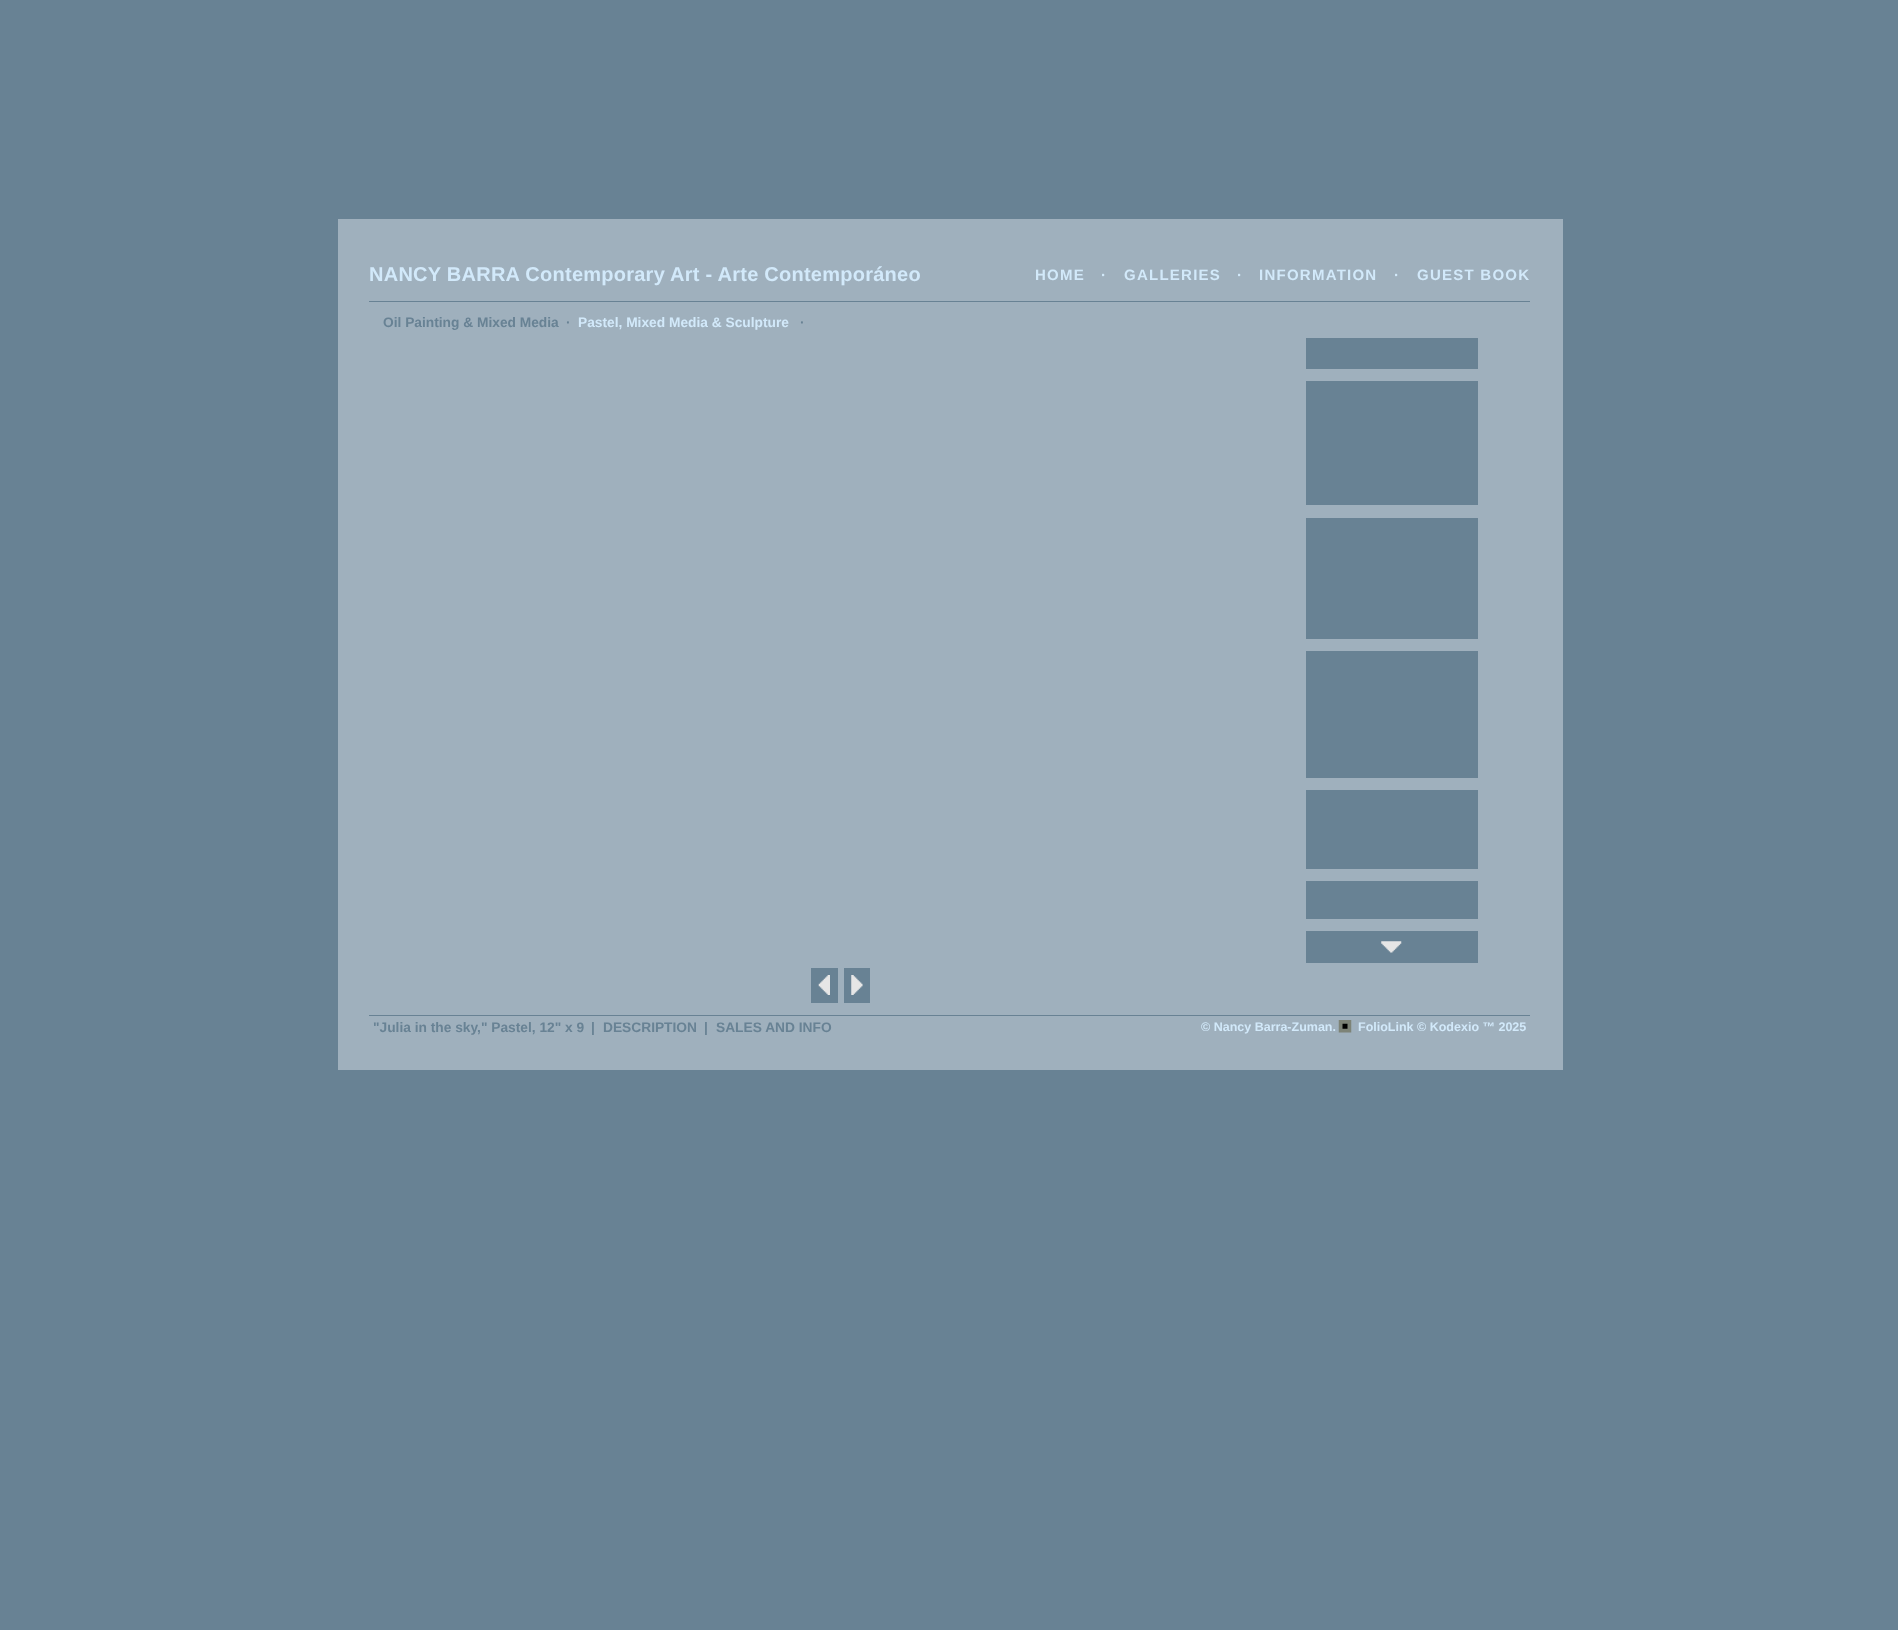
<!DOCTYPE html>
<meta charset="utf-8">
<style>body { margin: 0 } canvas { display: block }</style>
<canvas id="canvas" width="1898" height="1630"></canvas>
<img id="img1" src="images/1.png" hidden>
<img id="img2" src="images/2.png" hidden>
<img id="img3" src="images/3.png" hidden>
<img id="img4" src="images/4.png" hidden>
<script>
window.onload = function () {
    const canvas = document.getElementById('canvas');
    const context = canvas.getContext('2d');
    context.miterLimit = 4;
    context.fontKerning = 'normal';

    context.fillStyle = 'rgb(104, 130, 148)';
    context.fillRect(0, 0, 1898, 1630);
    context.fillStyle = 'rgb(159, 176, 189)';
    context.fillRect(338, 219, 1225, 851);
    context.fillStyle = 'rgb(104, 130, 148)';
    context.fillRect(369, 301, 1161, 1);
    context.fillRect(1306, 338, 172, 31);
    context.fillRect(1306, 381, 172, 124);
    context.fillRect(1306, 518, 172, 121);
    context.fillRect(1306, 651, 172, 127);
    context.fillRect(1306, 790, 172, 79);
    context.fillRect(1306, 881, 172, 38);
    context.fillRect(1306, 931, 172, 32);
    context.drawImage(document.getElementById('img1'), 1381, 941, 21, 12);
    context.fillRect(811, 968, 27, 35);
    context.drawImage(document.getElementById('img2'), 818, 975, 12, 20);
    context.fillRect(844, 968, 26, 35);
    context.drawImage(document.getElementById('img3'), 851, 975, 12, 20);
    context.fillRect(369, 1015, 1161, 1);
    context.drawImage(document.getElementById('img4'), 1338, 1020, 14, 13);
    context.letterSpacing = '0.25px';
    context.font = 'bold 20px Liberation Sans';
    context.fillStyle = 'rgb(210, 233, 250)';
    context.fillText('NANCY BARRA Contemporary Art - Arte Contemporáneo', 369, 281);
    context.letterSpacing = '1.25px';
    context.font = 'bold 15px Liberation Sans';
    context.fillText('HOME', 1035, 280);
    context.fillText('·', 1101, 280);
    context.fillText('GALLERIES', 1124, 280);
    context.fillText('·', 1237, 280);
    context.fillText('INFORMATION', 1259, 280);
    context.fillText('·', 1394, 280);
    context.fillText('GUEST BOOK', 1417, 280);
    context.letterSpacing = '0px';
    context.font = 'bold 13.75px Liberation Sans';
    context.fillStyle = 'rgb(104, 130, 148)';
    context.fillText('Oil Painting & Mixed Media', 383, 327);
    context.fillText('·', 566, 327);
    context.fillStyle = 'rgb(210, 233, 250)';
    context.fillText('Pastel, Mixed Media & Sculpture', 578, 327);
    context.fillStyle = 'rgb(104, 130, 148)';
    context.fillText('·', 800, 327);
    context.fillText('"Julia in the sky," Pastel, 12" x 9', 373, 1032);
    context.fillText('|', 591, 1032);
    context.fillText('DESCRIPTION', 603, 1032);
    context.fillText('|', 704, 1032);
    context.fillText('SALES AND INFO', 716, 1032);
    context.font = 'bold 12.5px Liberation Sans';
    context.fillStyle = 'rgb(210, 233, 250)';
    context.fillText('© Nancy Barra-Zuman.', 1201, 1031);
    context.fillText('FolioLink © Kodexio ™ 2025', 1358, 1031);
};
</script>
